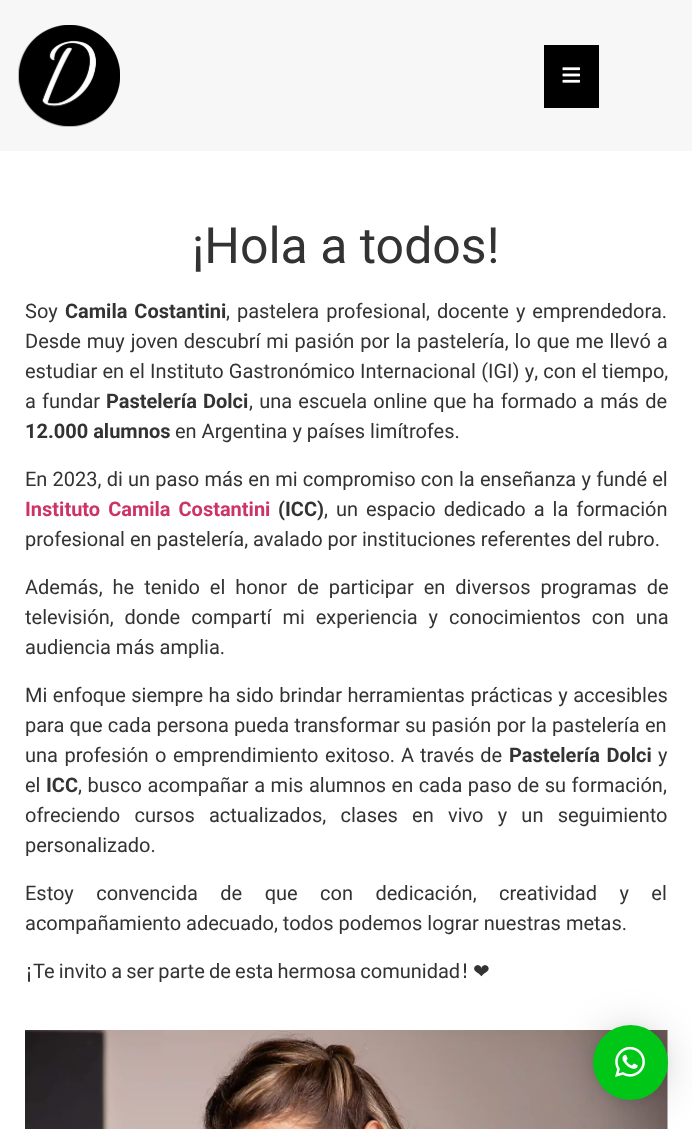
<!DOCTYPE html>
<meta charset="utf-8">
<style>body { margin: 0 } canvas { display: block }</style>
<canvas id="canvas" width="692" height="1129"></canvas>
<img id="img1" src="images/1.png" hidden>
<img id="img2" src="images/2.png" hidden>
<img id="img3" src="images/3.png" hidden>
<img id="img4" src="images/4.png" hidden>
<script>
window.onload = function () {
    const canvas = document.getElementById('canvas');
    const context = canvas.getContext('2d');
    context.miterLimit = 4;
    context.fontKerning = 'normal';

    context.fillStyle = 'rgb(255, 255, 255)';
    context.fillRect(0, 0, 692, 1129);
    context.fillStyle = 'rgb(247, 247, 247)';
    context.fillRect(0, 0, 692, 151);
    context.drawImage(document.getElementById('img1'), 18, 25, 102, 102);
    context.fillStyle = 'rgb(0, 0, 0)';
    context.fillRect(544, 45, 55, 63);
    context.drawImage(document.getElementById('img2'), 562, 67, 18, 16);
    context.drawImage(document.getElementById('img3'), 25, 1030, 643, 99);
    context.fillStyle = 'rgba(0, 0, 0, 0.16)';
    context.filter = 'blur(20px)';
    context.beginPath();
    context.roundRect(593, 1028, 75, 75, 37.5);
    context.fill();
    context.filter = 'none';
    context.fillStyle = 'rgba(0, 0, 0, 0.06)';
    context.filter = 'blur(4px)';
    context.beginPath();
    context.roundRect(593, 1026, 75, 75, 37.5);
    context.fill();
    context.filter = 'none';
    context.fillStyle = 'rgb(0, 198, 23)';
    context.beginPath();
    context.arc(630.5, 1062.5, 37.5, 0, 2 * Math.PI);
    context.fill();
    context.drawImage(document.getElementById('img4'), 615, 1046, 30, 31);
    context.font = '50px Roboto';
    context.fillStyle = 'rgb(51, 51, 51)';
    context.fillText('¡Hola a todos!', 192, 263);
    context.font = '20px Roboto';
    context.fillText('Soy', 25, 318);
    context.wordSpacing = '2px';
    context.font = 'bold 20px Roboto';
    context.fillText('Camila Costantini', 65, 318);
    context.font = '20px Roboto';
    context.fillText(', pastelera profesional, docente y emprendedora.', 226, 318);
    context.wordSpacing = '0.9px';
    context.fillText('Desde muy joven descubrí mi pasión por la pastelería, lo que me llevó a', 25, 348);
    context.wordSpacing = '0.25px';
    context.fillText('estudiar en el Instituto Gastronómico Internacional (IGI) y, con el tiempo,', 25, 378);
    context.wordSpacing = '1.25px';
    context.fillText('a fundar', 25, 408);
    context.wordSpacing = '1px';
    context.font = 'bold 20px Roboto';
    context.fillText('Pastelería Dolci', 106, 408);
    context.wordSpacing = '1.25px';
    context.font = '20px Roboto';
    context.fillText(', una escuela online que ha formado a más de', 249, 408);
    context.wordSpacing = '0px';
    context.font = 'bold 20px Roboto';
    context.fillText('12.000 alumnos', 25, 438);
    context.font = '20px Roboto';
    context.fillText('en Argentina y países limítrofes.', 175, 438);
    context.wordSpacing = '0.25px';
    context.fillText('En 2023, di un paso más en mi compromiso con la enseñanza y fundé el', 25, 486);
    context.wordSpacing = '3px';
    context.font = 'bold 20px Roboto';
    context.fillStyle = 'rgb(204, 51, 102)';
    context.fillText('Instituto Camila Costantini', 25, 516);
    context.wordSpacing = '0px';
    context.fillStyle = 'rgb(51, 51, 51)';
    context.fillText('(ICC)', 278, 516);
    context.wordSpacing = '3px';
    context.font = '20px Roboto';
    context.fillText(', un espacio dedicado a la formación', 324, 516);
    context.wordSpacing = '0px';
    context.fillText('profesional en pastelería, avalado por instituciones referentes del rubro.', 25, 546);
    context.wordSpacing = '5px';
    context.fillText('Además, he tenido el honor de participar en diversos programas de', 25, 594);
    context.wordSpacing = '6px';
    context.fillText('televisión, donde compartí mi experiencia y conocimientos con una', 25, 624);
    context.wordSpacing = '0px';
    context.fillText('audiencia más amplia.', 25, 654);
    context.wordSpacing = '0.5px';
    context.fillText('Mi enfoque siempre ha sido brindar herramientas prácticas y accesibles', 25, 702);
    context.wordSpacing = '0.25px';
    context.fillText('para que cada persona pueda transformar su pasión por la pastelería en', 25, 732);
    context.wordSpacing = '1.5px';
    context.fillText('una profesión o emprendimiento exitoso.', 25, 762);
    context.wordSpacing = '1px';
    context.fillText('A través de', 401, 762);
    context.wordSpacing = '1.5px';
    context.font = 'bold 20px Roboto';
    context.fillText('Pastelería Dolci', 509, 762);
    context.wordSpacing = '0px';
    context.font = '20px Roboto';
    context.fillText('y', 658, 762);
    context.fillText('el', 25, 792);
    context.font = 'bold 20px Roboto';
    context.fillText('ICC', 46, 792);
    context.wordSpacing = '0.6px';
    context.font = '20px Roboto';
    context.fillText(', busco acompañar a mis alumnos en cada paso de su formación,', 78, 792);
    context.wordSpacing = '9.25px';
    context.fillText('ofreciendo cursos actualizados, clases en vivo y un seguimiento', 25, 822);
    context.wordSpacing = '0px';
    context.fillText('personalizado.', 25, 852);
    context.wordSpacing = '17.5px';
    context.fillText('Estoy convencida de que con dedicación, creatividad y el', 25, 900);
    context.wordSpacing = '0px';
    context.fillText('acompañamiento adecuado, todos podemos lograr nuestras metas.', 25, 930);
    context.font = '20px DejaVu Sans';
    context.fillText('¡', 25, 978);
    context.wordSpacing = '-0.75px';
    context.font = '20px Roboto';
    context.fillText('Te invito a ser parte de esta hermosa comunidad', 33, 978);
    context.wordSpacing = '0px';
    context.font = '20px DejaVu Sans';
    context.fillText('!', 461, 978);
    context.fillText('❤', 473, 978);
};
</script>
